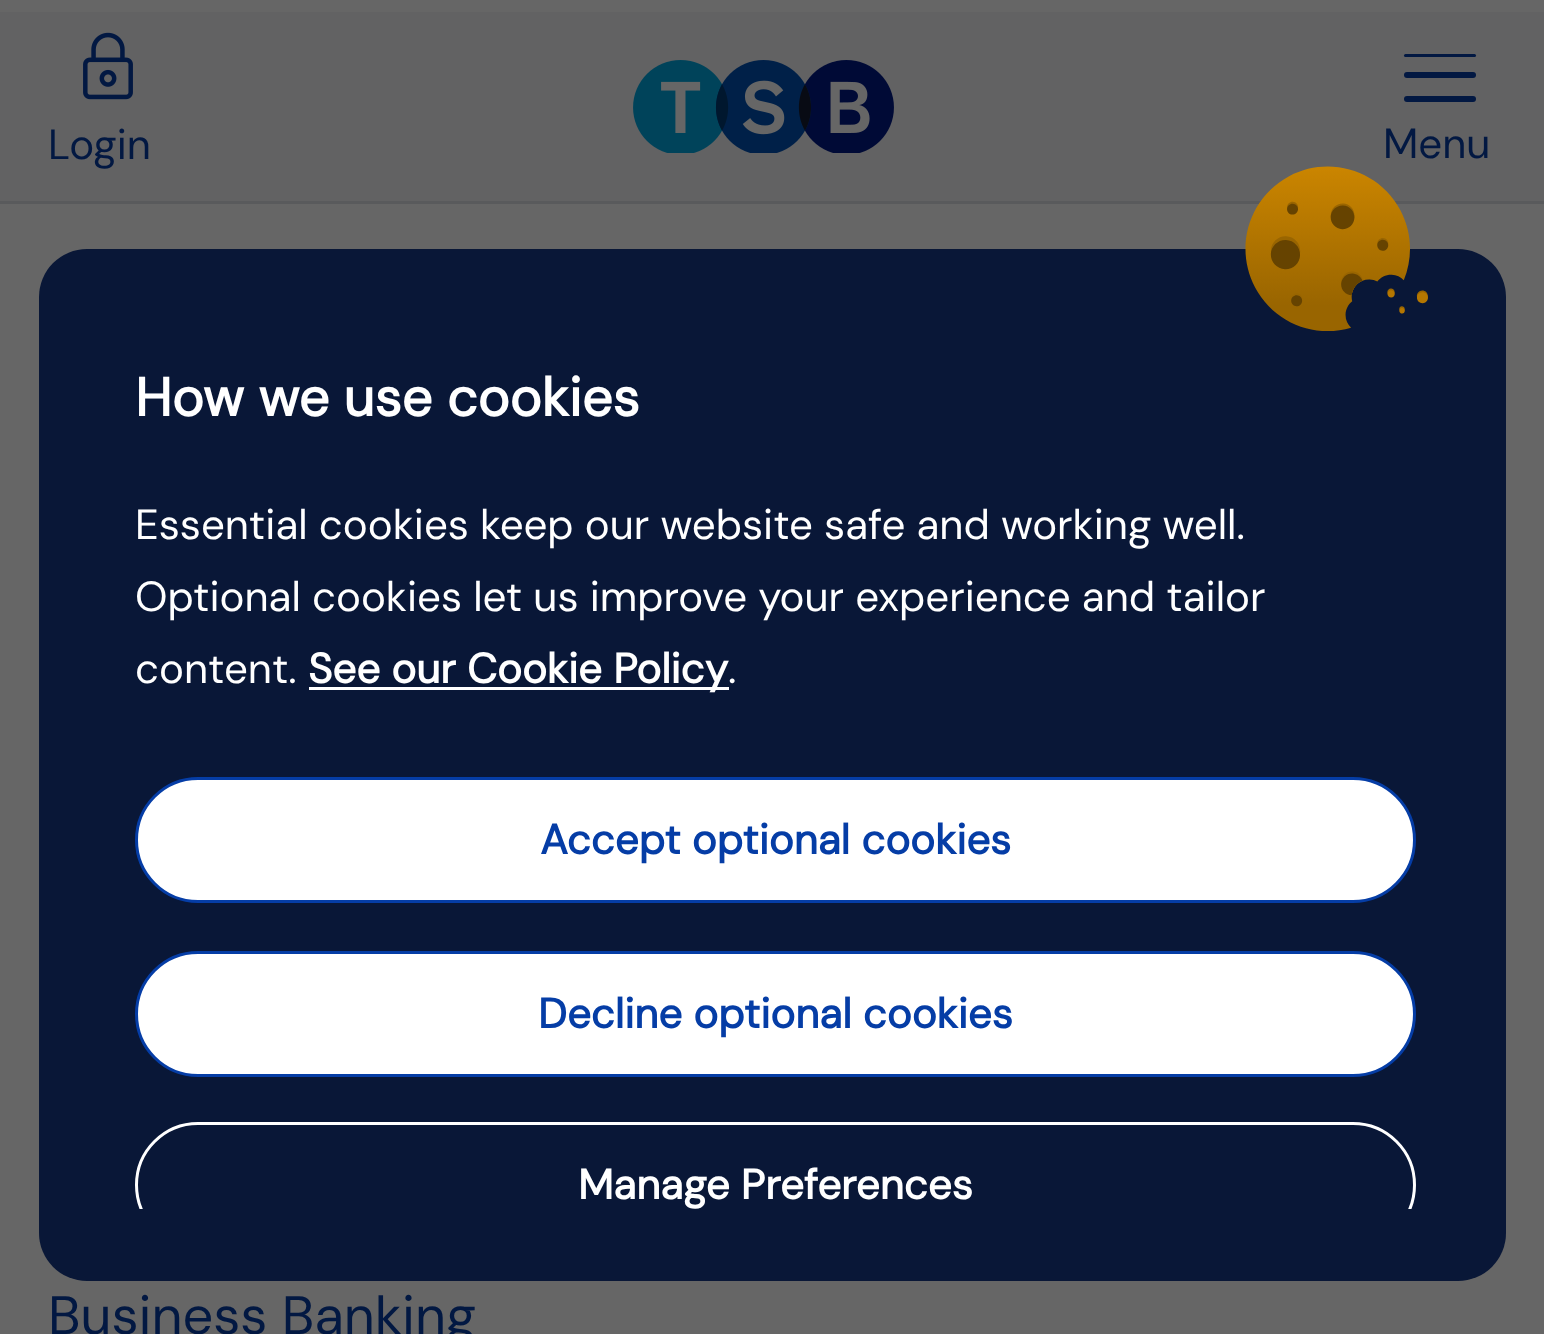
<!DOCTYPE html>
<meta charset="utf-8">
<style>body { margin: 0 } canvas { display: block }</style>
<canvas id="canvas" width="1544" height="1334"></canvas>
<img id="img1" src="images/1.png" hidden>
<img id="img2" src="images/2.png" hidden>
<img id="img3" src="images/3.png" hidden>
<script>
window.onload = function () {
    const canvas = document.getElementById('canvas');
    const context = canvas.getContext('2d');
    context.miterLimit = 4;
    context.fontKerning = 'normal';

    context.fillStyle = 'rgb(102, 102, 102)';
    context.fillRect(0, 0, 1544, 1334);
    context.fillStyle = 'rgb(98, 98, 99)';
    context.fillRect(0, 12, 1544, 189);
    context.fillStyle = 'rgb(89, 90, 92)';
    context.fillRect(0, 201, 1544, 3);
    context.drawImage(document.getElementById('img1'), 83, 32, 50, 68);
    context.drawImage(document.getElementById('img2'), 633, 60, 261, 93);
    context.fillStyle = 'rgb(2, 24, 66)';
    context.beginPath();
    context.roundRect(1404, 54, 72, 3, 1.5);
    context.fill();
    context.beginPath();
    context.roundRect(1404, 72, 72, 6, 3);
    context.fill();
    context.beginPath();
    context.roundRect(1404, 96, 72, 6, 3);
    context.fill();
    context.fillStyle = 'rgb(9, 23, 55)';
    context.beginPath();
    context.roundRect(39, 249, 1467, 1032, 48);
    context.fill();
    context.drawImage(document.getElementById('img3'), 1245, 166, 183, 165);
    context.fillStyle = 'rgb(255, 255, 255)';
    context.fillRect(309, 687, 420, 3);
    context.beginPath();
    context.roundRect(136.5, 778.5, 1278, 123, 61.5);
    context.fill();
    context.strokeStyle = 'rgb(5, 61, 166)';
    context.lineWidth = 3;
    context.stroke();
    context.beginPath();
    context.roundRect(136.5, 952.5, 1278, 123, 61.5);
    context.fill();
    context.stroke();
    context.save();
    context.beginPath();
    context.rect(87, 321, 1371, 888);
    context.clip();
    context.beginPath();
    context.roundRect(136.5, 1123.5, 1278, 123, 61.5);
    context.strokeStyle = 'rgb(255, 255, 255)';
    context.stroke();
    context.restore();
    context.font = '42px DM Sans';
    context.fillStyle = 'rgb(2, 24, 66)';
    context.fillText('Login', 48, 159);
    context.fillText('Menu', 1383, 158);
    context.font = '54px DM Sans';
    context.fillText('Business Banking', 48, 1334);
    context.font = 'bold 54px DM Sans';
    context.fillStyle = 'rgb(255, 255, 255)';
    context.fillText('How we use cookies', 135, 416);
    context.font = '42px DM Sans';
    context.fillText('Essential cookies keep our website safe and working well.', 135, 539);
    context.fillText('Optional cookies let us improve your experience and tailor', 135, 611);
    context.fillText('content.', 135, 683);
    context.font = 'bold 42px DM Sans';
    context.fillText('See our Cookie Policy', 308, 683);
    context.font = '42px DM Sans';
    context.fillText('.', 728, 683);
    context.font = 'bold 42px DM Sans';
    context.fillStyle = 'rgb(5, 61, 166)';
    context.fillText('Accept optional cookies', 540, 854);
    context.fillText('Decline optional cookies', 538, 1028);
    context.fillStyle = 'rgb(255, 255, 255)';
    context.fillText('Manage Preferences', 578, 1199);
};
</script>
